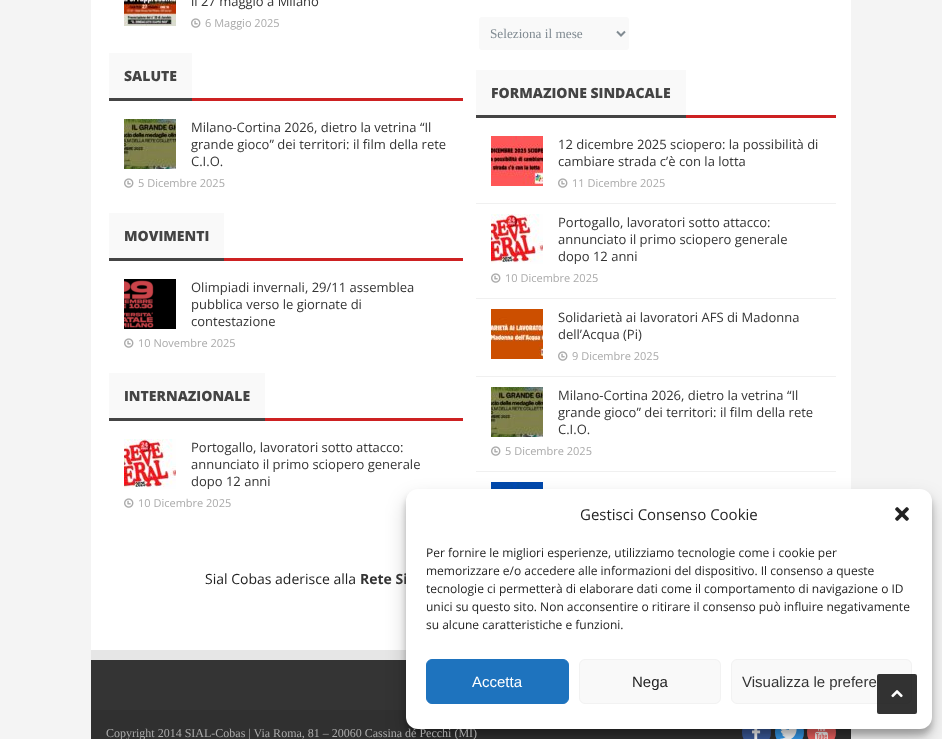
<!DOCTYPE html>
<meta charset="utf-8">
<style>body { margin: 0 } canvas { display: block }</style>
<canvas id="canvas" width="942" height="739"></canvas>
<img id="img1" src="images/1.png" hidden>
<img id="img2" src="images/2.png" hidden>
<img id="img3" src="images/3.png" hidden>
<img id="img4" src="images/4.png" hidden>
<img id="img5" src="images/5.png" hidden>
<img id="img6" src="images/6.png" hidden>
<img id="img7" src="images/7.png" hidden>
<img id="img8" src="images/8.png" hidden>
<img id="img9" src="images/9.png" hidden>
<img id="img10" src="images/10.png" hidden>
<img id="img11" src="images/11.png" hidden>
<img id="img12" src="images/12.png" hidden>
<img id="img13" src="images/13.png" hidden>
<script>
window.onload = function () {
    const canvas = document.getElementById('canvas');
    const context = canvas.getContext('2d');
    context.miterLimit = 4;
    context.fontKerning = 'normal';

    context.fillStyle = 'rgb(244, 244, 244)';
    context.fillRect(0, 0, 942, 739);
    context.fillStyle = 'rgb(255, 255, 255)';
    context.fillRect(91, 0, 760, 650);
    context.drawImage(document.getElementById('img1'), 124, 0, 52, 26);
    context.drawImage(document.getElementById('img2'), 191, 18, 10, 10);
    context.fillStyle = 'rgb(249, 249, 249)';
    context.beginPath();
    context.roundRect(479, 17, 150, 33, 3);
    context.fill();
    context.beginPath();
    context.moveTo(617, 31.5);
    context.lineTo(621, 35.5);
    context.lineTo(625, 31.5);
    context.strokeStyle = 'rgb(129, 139, 146)';
    context.lineWidth = 2;
    context.stroke();
    context.fillStyle = 'rgb(205, 33, 34)';
    context.fillRect(192, 98, 271, 3);
    context.fillStyle = 'rgb(249, 249, 249)';
    context.fillRect(109, 53, 83, 45);
    context.fillStyle = 'rgb(68, 68, 68)';
    context.fillRect(109, 98, 83, 3);
    context.drawImage(document.getElementById('img3'), 124, 119, 52, 50);
    context.drawImage(document.getElementById('img2'), 124, 178, 10, 10);
    context.fillStyle = 'rgb(205, 33, 34)';
    context.fillRect(686, 115, 150, 3);
    context.fillStyle = 'rgb(249, 249, 249)';
    context.fillRect(476, 70, 210, 45);
    context.fillStyle = 'rgb(68, 68, 68)';
    context.fillRect(476, 115, 210, 3);
    context.fillStyle = 'rgb(240, 240, 240)';
    context.fillRect(476, 203, 360, 1);
    context.drawImage(document.getElementById('img4'), 491, 136, 52, 50);
    context.drawImage(document.getElementById('img2'), 558, 178, 10, 10);
    context.fillRect(476, 298, 360, 1);
    context.drawImage(document.getElementById('img5'), 491, 214, 52, 50);
    context.drawImage(document.getElementById('img2'), 491, 273, 10, 10);
    context.fillRect(476, 376, 360, 1);
    context.drawImage(document.getElementById('img6'), 491, 309, 52, 50);
    context.drawImage(document.getElementById('img2'), 558, 351, 10, 10);
    context.fillRect(476, 471, 360, 1);
    context.drawImage(document.getElementById('img3'), 491, 387, 52, 50);
    context.drawImage(document.getElementById('img2'), 491, 446, 10, 10);
    context.drawImage(document.getElementById('img7'), 491, 482, 52, 7);
    context.fillStyle = 'rgb(205, 33, 34)';
    context.fillRect(224, 258, 239, 3);
    context.fillStyle = 'rgb(249, 249, 249)';
    context.fillRect(109, 213, 115, 45);
    context.fillStyle = 'rgb(68, 68, 68)';
    context.fillRect(109, 258, 115, 3);
    context.drawImage(document.getElementById('img8'), 124, 279, 52, 50);
    context.drawImage(document.getElementById('img2'), 124, 338, 10, 10);
    context.fillStyle = 'rgb(205, 33, 34)';
    context.fillRect(265, 418, 198, 3);
    context.fillStyle = 'rgb(249, 249, 249)';
    context.fillRect(109, 373, 156, 45);
    context.fillStyle = 'rgb(68, 68, 68)';
    context.fillRect(109, 418, 156, 3);
    context.drawImage(document.getElementById('img5'), 124, 439, 52, 50);
    context.drawImage(document.getElementById('img2'), 124, 498, 10, 10);
    context.fillStyle = 'rgb(230, 230, 230)';
    context.fillRect(91, 650, 315, 10);
    context.fillStyle = 'rgb(52, 52, 52)';
    context.fillRect(91, 660, 315, 50);
    context.fillStyle = 'rgb(48, 48, 48)';
    context.fillRect(91, 710, 760, 29);
    context.fillStyle = 'rgb(60, 91, 155)';
    context.beginPath();
    context.arc(756.5, 732.5, 14.5, 0, 2 * Math.PI);
    context.fill();
    context.drawImage(document.getElementById('img9'), 752, 729, 9, 10);
    context.fillStyle = 'rgb(53, 155, 237)';
    context.beginPath();
    context.arc(789.5, 732.5, 14.5, 0, 2 * Math.PI);
    context.fill();
    context.drawImage(document.getElementById('img10'), 780, 729, 17, 10);
    context.fillStyle = 'rgb(241, 99, 97)';
    context.beginPath();
    context.arc(821.5, 732.5, 14.5, 0, 2 * Math.PI);
    context.fill();
    context.drawImage(document.getElementById('img11'), 815, 729, 13, 10);
    context.fillStyle = 'rgba(0, 0, 0, 0.23)';
    context.filter = 'blur(3px)';
    context.beginPath();
    context.roundRect(406, 495, 526, 240, 12);
    context.fill();
    context.filter = 'none';
    context.fillStyle = 'rgba(0, 0, 0, 0.19)';
    context.filter = 'blur(10px)';
    context.beginPath();
    context.roundRect(406, 499, 526, 240, 12);
    context.fill();
    context.filter = 'none';
    context.font = '13px Open Sans';
    context.fillStyle = 'rgb(52, 52, 52)';
    context.fillText('il 27 maggio a Milano', 191, 6);
    context.font = '11px Open Sans';
    context.fillStyle = 'rgb(170, 170, 170)';
    context.fillText('6 Maggio 2025', 205, 27);
    context.font = '13.25px Liberation Serif';
    context.fillStyle = 'rgb(129, 139, 146)';
    context.fillText('Seleziona il mese', 490, 38);
    context.font = '800 14px Open Sans';
    context.fillStyle = 'rgb(68, 68, 68)';
    context.fillText('SALUTE', 124, 81);
    context.font = '13px Open Sans';
    context.fillStyle = 'rgb(52, 52, 52)';
    context.fillText('Milano-Cortina 2026, dietro la vetrina “Il', 191, 132);
    context.fillText('grande gioco” dei territori: il film della rete', 191, 149);
    context.fillText('C.I.O.', 191, 166);
    context.font = '11px Open Sans';
    context.fillStyle = 'rgb(170, 170, 170)';
    context.fillText('5 Dicembre 2025', 138, 187);
    context.font = '800 14px Open Sans';
    context.fillStyle = 'rgb(68, 68, 68)';
    context.fillText('FORMAZIONE SINDACALE', 491, 98);
    context.font = '13px Open Sans';
    context.fillStyle = 'rgb(52, 52, 52)';
    context.fillText('12 dicembre 2025 sciopero: la possibilità di', 558, 149);
    context.fillText('cambiare strada c’è con la lotta', 558, 166);
    context.font = '11px Open Sans';
    context.fillStyle = 'rgb(170, 170, 170)';
    context.fillText('11 Dicembre 2025', 572, 187);
    context.font = '13px Open Sans';
    context.fillStyle = 'rgb(52, 52, 52)';
    context.fillText('Portogallo, lavoratori sotto attacco:', 558, 227);
    context.fillText('annunciato il primo sciopero generale', 558, 244);
    context.fillText('dopo 12 anni', 558, 261);
    context.font = '11px Open Sans';
    context.fillStyle = 'rgb(170, 170, 170)';
    context.fillText('10 Dicembre 2025', 505, 282);
    context.font = '13px Open Sans';
    context.fillStyle = 'rgb(52, 52, 52)';
    context.fillText('Solidarietà ai lavoratori AFS di Madonna', 558, 322);
    context.fillText('dell’Acqua (Pi)', 558, 339);
    context.font = '11px Open Sans';
    context.fillStyle = 'rgb(170, 170, 170)';
    context.fillText('9 Dicembre 2025', 572, 360);
    context.font = '13px Open Sans';
    context.fillStyle = 'rgb(52, 52, 52)';
    context.fillText('Milano-Cortina 2026, dietro la vetrina “Il', 558, 400);
    context.fillText('grande gioco” dei territori: il film della rete', 558, 417);
    context.fillText('C.I.O.', 558, 434);
    context.font = '11px Open Sans';
    context.fillStyle = 'rgb(170, 170, 170)';
    context.fillText('5 Dicembre 2025', 505, 455);
    context.font = '800 14px Open Sans';
    context.fillStyle = 'rgb(68, 68, 68)';
    context.fillText('MOVIMENTI', 124, 241);
    context.font = '13px Open Sans';
    context.fillStyle = 'rgb(52, 52, 52)';
    context.fillText('Olimpiadi invernali, 29/11 assemblea', 191, 292);
    context.fillText('pubblica verso le giornate di', 191, 309);
    context.fillText('contestazione', 191, 326);
    context.font = '11px Open Sans';
    context.fillStyle = 'rgb(170, 170, 170)';
    context.fillText('10 Novembre 2025', 138, 347);
    context.font = '800 14px Open Sans';
    context.fillStyle = 'rgb(68, 68, 68)';
    context.fillText('INTERNAZIONALE', 124, 401);
    context.font = '13px Open Sans';
    context.fillStyle = 'rgb(52, 52, 52)';
    context.fillText('Portogallo, lavoratori sotto attacco:', 191, 452);
    context.fillText('annunciato il primo sciopero generale', 191, 469);
    context.fillText('dopo 12 anni', 191, 486);
    context.font = '11px Open Sans';
    context.fillStyle = 'rgb(170, 170, 170)';
    context.fillText('10 Dicembre 2025', 138, 507);
    context.font = '14px Open Sans';
    context.fillStyle = 'rgb(34, 34, 34)';
    context.fillText('Sial Cobas aderisce alla', 205, 584);
    context.font = 'bold 14px Open Sans';
    context.fillStyle = 'rgb(52, 52, 52)';
    context.fillText('Rete Si', 360, 584);
    context.font = '12px Liberation Serif';
    context.fillStyle = 'rgb(170, 170, 170)';
    context.fillText('Copyright 2014 SIAL-Cobas | Via Roma, 81 – 20060 Cassina dé Pecchi (MI)', 106, 737);
    context.fillStyle = 'rgb(255, 255, 255)';
    context.beginPath();
    context.roundRect(406, 489, 526, 240, 12);
    context.fill();
    context.font = '15px Open Sans';
    context.fillStyle = 'rgb(34, 34, 34)';
    context.fillText('Gestisci Consenso Cookie', 580, 520);
    context.drawImage(document.getElementById('img12'), 895, 507, 14, 14);
    context.font = '12px Open Sans';
    context.fillText('Per fornire le migliori esperienze, utilizziamo tecnologie come i cookie per', 426, 557);
    context.fillText('memorizzare e/o accedere alle informazioni del dispositivo. Il consenso a queste', 426, 575);
    context.fillText('tecnologie ci permetterà di elaborare dati come il comportamento di navigazione o ID', 426, 593);
    context.fillText('unici su questo sito. Non acconsentire o ritirare il consenso può influire negativamente', 426, 611);
    context.fillText('su alcune caratteristiche e funzioni.', 426, 629);
    context.fillStyle = 'rgb(30, 115, 190)';
    context.beginPath();
    context.roundRect(426.5, 659.5, 142, 44, 5.5);
    context.fill();
    context.strokeStyle = 'rgb(30, 115, 190)';
    context.lineWidth = 1;
    context.stroke();
    context.font = '15px Liberation Sans';
    context.fillStyle = 'rgb(255, 255, 255)';
    context.fillText('Accetta', 472, 687);
    context.fillStyle = 'rgb(249, 249, 249)';
    context.beginPath();
    context.roundRect(579.5, 659.5, 141, 44, 5.5);
    context.fill();
    context.strokeStyle = 'rgb(242, 242, 242)';
    context.stroke();
    context.fillStyle = 'rgb(34, 34, 34)';
    context.fillText('Nega', 632, 687);
    context.fillStyle = 'rgb(249, 249, 249)';
    context.beginPath();
    context.roundRect(731.5, 659.5, 180, 44, 5.5);
    context.fill();
    context.stroke();
    context.fillStyle = 'rgb(52, 52, 52)';
    context.fillText('Visualizza le prefere', 742, 687);
    context.fillStyle = 'rgba(0, 0, 0, 0.8)';
    context.beginPath();
    context.roundRect(877, 674, 40, 40, 2);
    context.fill();
    context.drawImage(document.getElementById('img13'), 891, 690, 12, 8);
};
</script>
